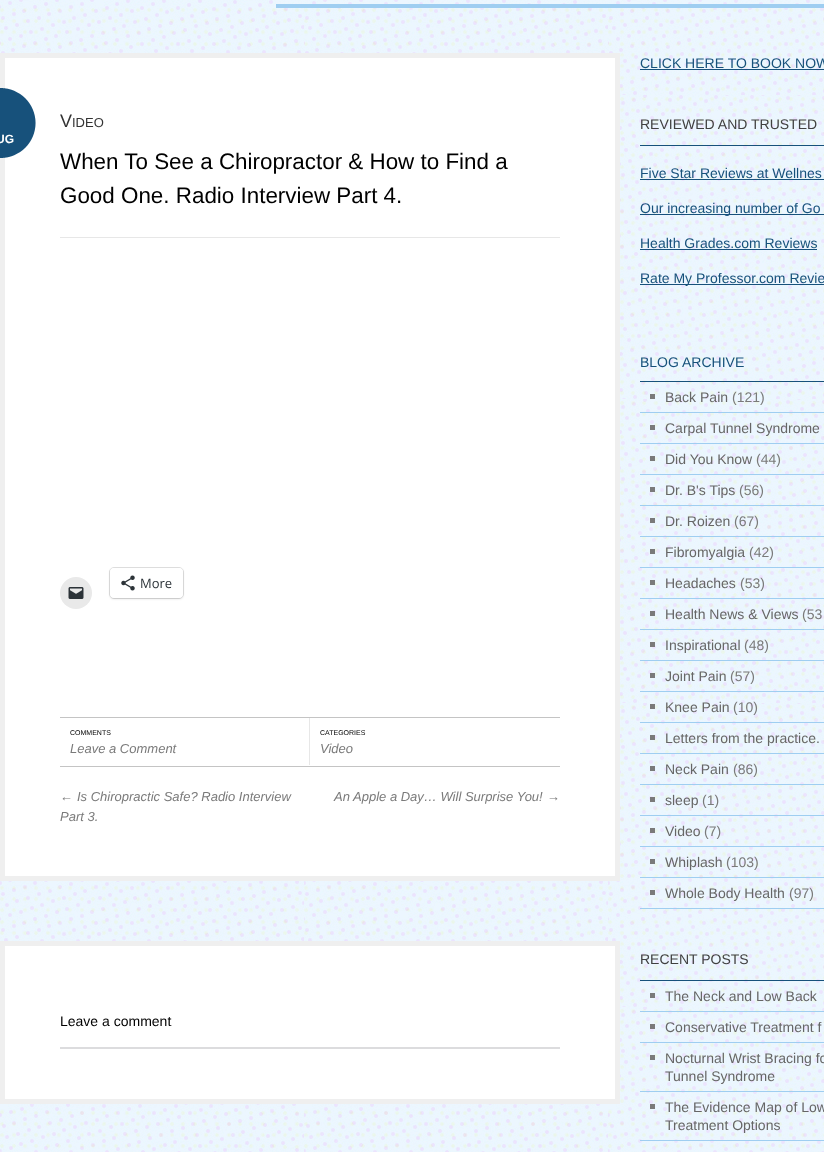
<!DOCTYPE html>
<meta charset="utf-8">
<style>body { margin: 0 } canvas { display: block }</style>
<canvas id="canvas" width="824" height="1152"></canvas>
<img id="img1" src="images/1.png" hidden>
<img id="img2" src="images/2.png" hidden>
<img id="img3" src="images/3.png" hidden>
<img id="img4" src="images/4.png" hidden>
<script>
window.onload = function () {
    const canvas = document.getElementById('canvas');
    const context = canvas.getContext('2d');
    context.miterLimit = 4;
    context.fontKerning = 'normal';

    context.fillStyle = 'rgb(255, 255, 255)';
    context.fillRect(0, 0, 824, 1152);
    context.drawImage(document.getElementById('img1'), 0, 0, 824, 1152);
    context.fillStyle = 'rgb(159, 206, 241)';
    context.fillRect(276, 4, 548, 4);
    context.fillStyle = 'rgb(255, 255, 255)';
    context.beginPath();
    context.rect(2.5, 55.5, 615, 823);
    context.fill();
    context.strokeStyle = 'rgb(239, 239, 239)';
    context.lineWidth = 5;
    context.stroke();
    context.drawImage(document.getElementById('img2'), 0, 88, 36, 70);
    context.fillStyle = 'rgb(231, 231, 231)';
    context.fillRect(60, 237, 500, 1);
    context.fillStyle = 'rgb(233, 233, 233)';
    context.beginPath();
    context.arc(76, 593, 16, 0, 2 * Math.PI);
    context.fill();
    context.drawImage(document.getElementById('img3'), 68, 587, 16, 12);
    context.beginPath();
    context.roundRect(109.5, 567.5, 74, 31, 4.5);
    context.strokeStyle = 'rgb(224, 224, 224)';
    context.lineWidth = 1;
    context.stroke();
    context.fillStyle = 'rgba(0, 0, 0, 0.12)';
    context.filter = 'blur(1px)';
    context.beginPath();
    context.roundRect(110, 569, 73, 30, 4);
    context.fill();
    context.filter = 'none';
    context.fillStyle = 'rgb(255, 255, 255)';
    context.beginPath();
    context.roundRect(110, 568, 73, 30, 4);
    context.fill();
    context.drawImage(document.getElementById('img4'), 121, 575, 14, 16);
    context.fillStyle = 'rgb(196, 196, 196)';
    context.fillRect(60, 717, 500, 1);
    context.fillRect(60, 766, 500, 1);
    context.fillStyle = 'rgb(231, 231, 231)';
    context.fillRect(309, 718, 1, 47);
    context.fillStyle = 'rgb(255, 255, 255)';
    context.beginPath();
    context.rect(2.5, 943.5, 615, 158);
    context.fill();
    context.strokeStyle = 'rgb(239, 239, 239)';
    context.lineWidth = 5;
    context.stroke();
    context.fillStyle = 'rgb(220, 220, 222)';
    context.fillRect(60, 1047, 500, 2);
    context.fillStyle = 'rgb(23, 81, 123)';
    context.fillRect(640, 69, 184, 1);
    context.fillRect(640, 145, 184, 1);
    context.fillRect(640, 179, 184, 1);
    context.fillRect(640, 214, 184, 1);
    context.fillRect(640, 249, 177, 1);
    context.fillRect(640, 284, 184, 1);
    context.fillRect(640, 381, 184, 1);
    context.fillStyle = 'rgb(122, 122, 122)';
    context.fillRect(650, 394, 5, 5);
    context.fillStyle = 'rgb(159, 206, 241)';
    context.fillRect(640, 412, 184, 1);
    context.fillStyle = 'rgb(122, 122, 122)';
    context.fillRect(650, 425, 5, 5);
    context.fillStyle = 'rgb(159, 206, 241)';
    context.fillRect(640, 443, 184, 1);
    context.fillStyle = 'rgb(122, 122, 122)';
    context.fillRect(650, 456, 5, 5);
    context.fillStyle = 'rgb(159, 206, 241)';
    context.fillRect(640, 474, 184, 1);
    context.fillStyle = 'rgb(122, 122, 122)';
    context.fillRect(650, 487, 5, 5);
    context.fillStyle = 'rgb(159, 206, 241)';
    context.fillRect(640, 505, 184, 1);
    context.fillStyle = 'rgb(122, 122, 122)';
    context.fillRect(650, 518, 5, 5);
    context.fillStyle = 'rgb(159, 206, 241)';
    context.fillRect(640, 536, 184, 1);
    context.fillStyle = 'rgb(122, 122, 122)';
    context.fillRect(650, 549, 5, 5);
    context.fillStyle = 'rgb(159, 206, 241)';
    context.fillRect(640, 567, 184, 1);
    context.fillStyle = 'rgb(122, 122, 122)';
    context.fillRect(650, 580, 5, 5);
    context.fillStyle = 'rgb(159, 206, 241)';
    context.fillRect(640, 598, 184, 1);
    context.fillStyle = 'rgb(122, 122, 122)';
    context.fillRect(650, 611, 5, 5);
    context.fillStyle = 'rgb(159, 206, 241)';
    context.fillRect(640, 629, 184, 1);
    context.fillStyle = 'rgb(122, 122, 122)';
    context.fillRect(650, 642, 5, 5);
    context.fillStyle = 'rgb(159, 206, 241)';
    context.fillRect(640, 660, 184, 1);
    context.fillStyle = 'rgb(122, 122, 122)';
    context.fillRect(650, 673, 5, 5);
    context.fillStyle = 'rgb(159, 206, 241)';
    context.fillRect(640, 691, 184, 1);
    context.fillStyle = 'rgb(122, 122, 122)';
    context.fillRect(650, 704, 5, 5);
    context.fillStyle = 'rgb(159, 206, 241)';
    context.fillRect(640, 722, 184, 1);
    context.fillStyle = 'rgb(122, 122, 122)';
    context.fillRect(650, 735, 5, 5);
    context.fillStyle = 'rgb(159, 206, 241)';
    context.fillRect(640, 753, 184, 1);
    context.fillStyle = 'rgb(122, 122, 122)';
    context.fillRect(650, 766, 5, 5);
    context.fillStyle = 'rgb(159, 206, 241)';
    context.fillRect(640, 784, 184, 1);
    context.fillStyle = 'rgb(122, 122, 122)';
    context.fillRect(650, 797, 5, 5);
    context.fillStyle = 'rgb(159, 206, 241)';
    context.fillRect(640, 815, 184, 1);
    context.fillStyle = 'rgb(122, 122, 122)';
    context.fillRect(650, 828, 5, 5);
    context.fillStyle = 'rgb(159, 206, 241)';
    context.fillRect(640, 846, 184, 1);
    context.fillStyle = 'rgb(122, 122, 122)';
    context.fillRect(650, 859, 5, 5);
    context.fillStyle = 'rgb(159, 206, 241)';
    context.fillRect(640, 877, 184, 1);
    context.fillStyle = 'rgb(122, 122, 122)';
    context.fillRect(650, 890, 5, 5);
    context.fillStyle = 'rgb(159, 206, 241)';
    context.fillRect(640, 908, 184, 1);
    context.fillStyle = 'rgb(23, 81, 123)';
    context.fillRect(640, 980, 184, 1);
    context.fillStyle = 'rgb(122, 122, 122)';
    context.fillRect(650, 993, 5, 5);
    context.fillStyle = 'rgb(159, 206, 241)';
    context.fillRect(640, 1011, 184, 1);
    context.fillStyle = 'rgb(122, 122, 122)';
    context.fillRect(650, 1024, 5, 5);
    context.fillStyle = 'rgb(159, 206, 241)';
    context.fillRect(640, 1042, 184, 1);
    context.fillStyle = 'rgb(122, 122, 122)';
    context.fillRect(650, 1055, 5, 5);
    context.fillStyle = 'rgb(159, 206, 241)';
    context.fillRect(640, 1091, 184, 1);
    context.fillStyle = 'rgb(122, 122, 122)';
    context.fillRect(650, 1104, 5, 5);
    context.fillStyle = 'rgb(159, 206, 241)';
    context.fillRect(640, 1140, 184, 1);
    context.font = '18px Arimo';
    context.fillStyle = 'rgb(51, 51, 51)';
    context.fillText('V', 60, 127);
    context.font = '13px Arimo';
    context.fillText('IDEO', 72, 127);
    context.font = 'bold 12px Arimo';
    context.fillStyle = 'rgb(255, 255, 255)';
    context.fillText('UG', -4, 143);
    context.font = '22.4px Arimo';
    context.fillStyle = 'rgb(0, 0, 0)';
    context.fillText('When To See a Chiropractor & How to Find a', 60, 169);
    context.fillText('Good One. Radio Interview Part 4.', 60, 203);
    context.font = '13px Open Sans';
    context.fillStyle = 'rgb(44, 51, 56)';
    context.fillText('More', 140, 588);
    context.font = '7px Arimo';
    context.fillStyle = 'rgb(0, 0, 0)';
    context.fillText('COMMENTS', 70, 735);
    context.font = 'italic 13px Arimo';
    context.fillStyle = 'rgb(122, 122, 122)';
    context.fillText('Leave a Comment', 70, 753);
    context.font = '7px Arimo';
    context.fillStyle = 'rgb(0, 0, 0)';
    context.fillText('CATEGORIES', 320, 735);
    context.font = 'italic 13px Arimo';
    context.fillStyle = 'rgb(122, 122, 122)';
    context.fillText('Video', 320, 753);
    context.font = 'italic 13px Liberation Sans';
    context.fillText('←', 60, 801);
    context.font = 'italic 13px Arimo';
    context.fillText('Is Chiropractic Safe? Radio Interview', 77, 801);
    context.fillText('Part 3.', 60, 821);
    context.fillText('An Apple a Day… Will Surprise You!', 334, 801);
    context.font = 'italic 13px Liberation Sans';
    context.fillText('→', 547, 801);
    context.font = '14px Arimo';
    context.fillStyle = 'rgb(0, 0, 0)';
    context.fillText('Leave a comment', 60, 1026);
    context.fillStyle = 'rgb(23, 81, 123)';
    context.fillText('CLICK HERE TO BOOK NOW', 640, 68);
    context.fillStyle = 'rgb(64, 64, 64)';
    context.fillText('REVIEWED AND TRUSTED', 640, 129);
    context.fillStyle = 'rgb(23, 81, 123)';
    context.fillText('Five Star Reviews at Wellnes', 640, 178);
    context.fillText('Our increasing number of Go', 640, 213);
    context.fillText('Health Grades.com Reviews', 640, 248);
    context.fillText('Rate My Professor.com Revie', 640, 283);
    context.fillText('BLOG ARCHIVE', 640, 367);
    context.fillStyle = 'rgb(102, 102, 102)';
    context.fillText('Back Pain', 665, 402);
    context.fillStyle = 'rgb(122, 122, 122)';
    context.fillText('(121)', 732, 402);
    context.fillStyle = 'rgb(102, 102, 102)';
    context.fillText('Carpal Tunnel Syndrome', 665, 433);
    context.fillText('Did You Know', 665, 464);
    context.fillStyle = 'rgb(122, 122, 122)';
    context.fillText('(44)', 756, 464);
    context.fillStyle = 'rgb(102, 102, 102)';
    context.fillText('Dr. B\'s Tips', 665, 495);
    context.fillStyle = 'rgb(122, 122, 122)';
    context.fillText('(56)', 739, 495);
    context.fillStyle = 'rgb(102, 102, 102)';
    context.fillText('Dr. Roizen', 665, 526);
    context.fillStyle = 'rgb(122, 122, 122)';
    context.fillText('(67)', 734, 526);
    context.fillStyle = 'rgb(102, 102, 102)';
    context.fillText('Fibromyalgia', 665, 557);
    context.fillStyle = 'rgb(122, 122, 122)';
    context.fillText('(42)', 749, 557);
    context.fillStyle = 'rgb(102, 102, 102)';
    context.fillText('Headaches', 665, 588);
    context.fillStyle = 'rgb(122, 122, 122)';
    context.fillText('(53)', 740, 588);
    context.fillStyle = 'rgb(102, 102, 102)';
    context.fillText('Health News & Views', 665, 619);
    context.fillStyle = 'rgb(122, 122, 122)';
    context.fillText('(53', 802, 619);
    context.fillStyle = 'rgb(102, 102, 102)';
    context.fillText('Inspirational', 665, 650);
    context.fillStyle = 'rgb(122, 122, 122)';
    context.fillText('(48)', 744, 650);
    context.fillStyle = 'rgb(102, 102, 102)';
    context.fillText('Joint Pain', 665, 681);
    context.fillStyle = 'rgb(122, 122, 122)';
    context.fillText('(57)', 730, 681);
    context.fillStyle = 'rgb(102, 102, 102)';
    context.fillText('Knee Pain', 665, 712);
    context.fillStyle = 'rgb(122, 122, 122)';
    context.fillText('(10)', 733, 712);
    context.fillStyle = 'rgb(102, 102, 102)';
    context.fillText('Letters from the practice.', 665, 743);
    context.fillText('Neck Pain', 665, 774);
    context.fillStyle = 'rgb(122, 122, 122)';
    context.fillText('(86)', 733, 774);
    context.fillStyle = 'rgb(102, 102, 102)';
    context.fillText('sleep', 665, 805);
    context.fillStyle = 'rgb(122, 122, 122)';
    context.fillText('(1)', 702, 805);
    context.fillStyle = 'rgb(102, 102, 102)';
    context.fillText('Video', 665, 836);
    context.fillStyle = 'rgb(122, 122, 122)';
    context.fillText('(7)', 704, 836);
    context.fillStyle = 'rgb(102, 102, 102)';
    context.fillText('Whiplash', 665, 867);
    context.fillStyle = 'rgb(122, 122, 122)';
    context.fillText('(103)', 726, 867);
    context.fillStyle = 'rgb(102, 102, 102)';
    context.fillText('Whole Body Health', 665, 898);
    context.fillStyle = 'rgb(122, 122, 122)';
    context.fillText('(97)', 789, 898);
    context.fillStyle = 'rgb(64, 64, 64)';
    context.fillText('RECENT POSTS', 640, 964);
    context.fillStyle = 'rgb(102, 102, 102)';
    context.fillText('The Neck and Low Back', 665, 1001);
    context.fillText('Conservative Treatment f', 665, 1032);
    context.fillText('Nocturnal Wrist Bracing fo', 665, 1063);
    context.fillText('Tunnel Syndrome', 665, 1081);
    context.fillText('The Evidence Map of Low', 665, 1112);
    context.fillText('Treatment Options', 665, 1130);
};
</script>
